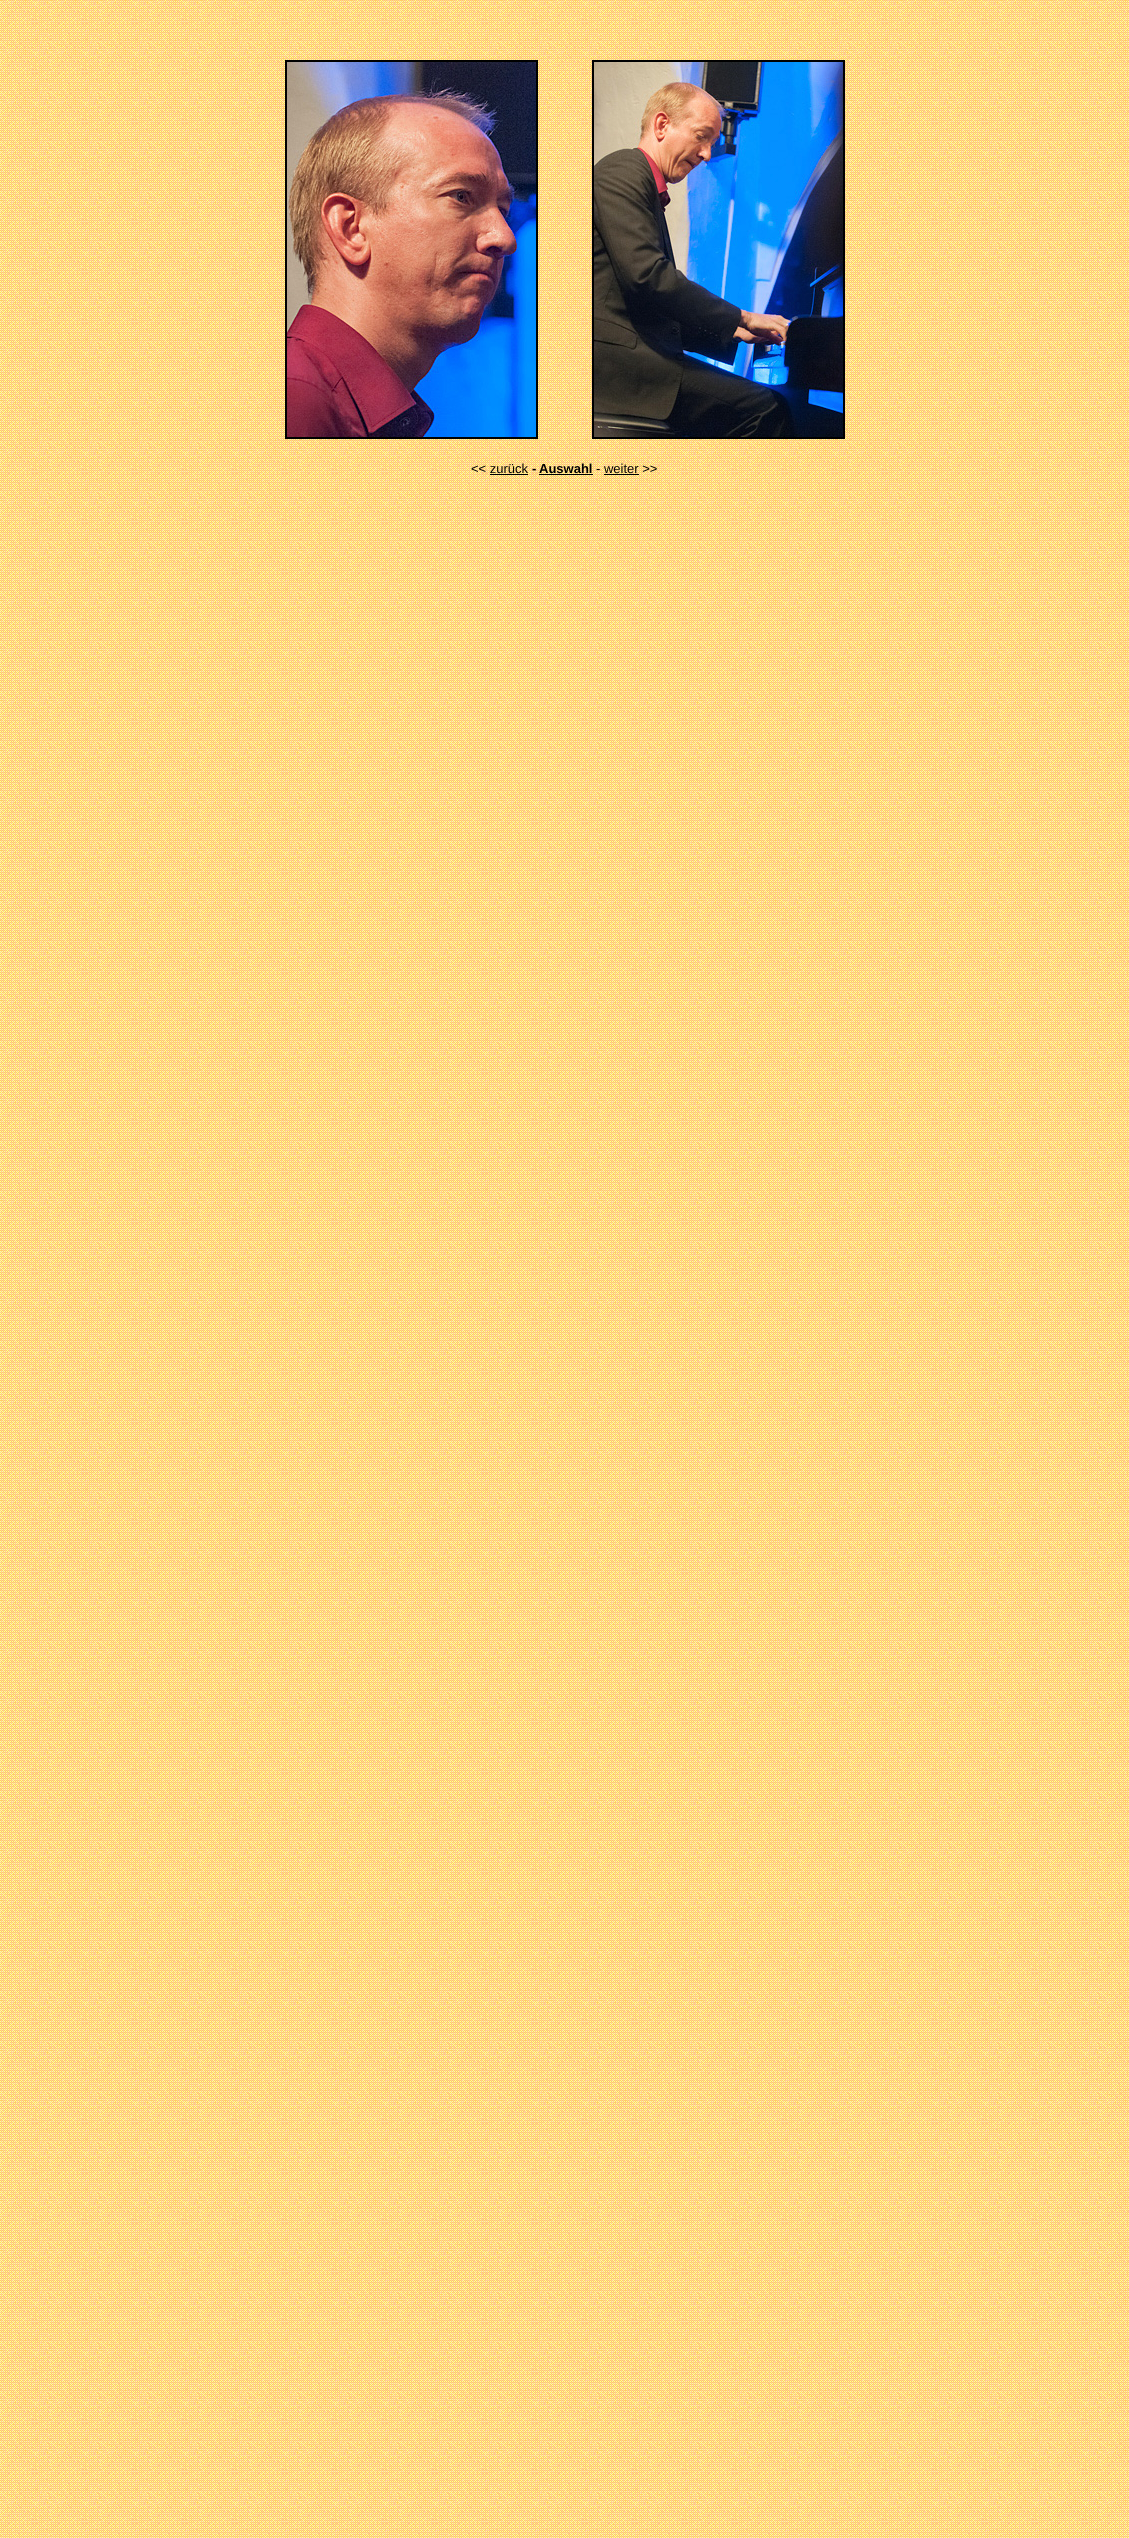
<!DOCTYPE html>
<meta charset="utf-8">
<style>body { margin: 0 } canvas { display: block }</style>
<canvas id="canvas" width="1129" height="2538"></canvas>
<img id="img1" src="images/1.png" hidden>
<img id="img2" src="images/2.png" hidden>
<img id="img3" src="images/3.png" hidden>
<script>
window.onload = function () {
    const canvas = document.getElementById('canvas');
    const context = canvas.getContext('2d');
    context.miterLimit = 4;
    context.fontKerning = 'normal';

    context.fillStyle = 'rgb(255, 255, 255)';
    context.fillRect(0, 0, 1129, 2538);
    context.drawImage(document.getElementById('img1'), 0, 0, 1129, 2538);
    context.strokeStyle = 'rgb(0, 0, 0)';
    context.lineWidth = 2;
    context.strokeRect(286, 61, 251, 377);
    context.strokeRect(593, 61, 251, 377);
    context.drawImage(document.getElementById('img2'), 287, 62, 249, 375);
    context.drawImage(document.getElementById('img3'), 594, 62, 249, 375);
    context.fillStyle = 'rgb(0, 0, 0)';
    context.fillRect(490, 474, 38, 1);
    context.fillRect(539, 474, 54, 1);
    context.fillRect(604, 474, 35, 1);
    context.font = '13px Liberation Sans';
    context.fillText('<< zurück', 471, 473);
    context.font = 'bold 13px Liberation Sans';
    context.fillText('-', 532, 473);
    context.fillText('Auswahl', 539, 473);
    context.font = '13px Liberation Sans';
    context.fillText('- weiter >>', 596, 473);
};
</script>
